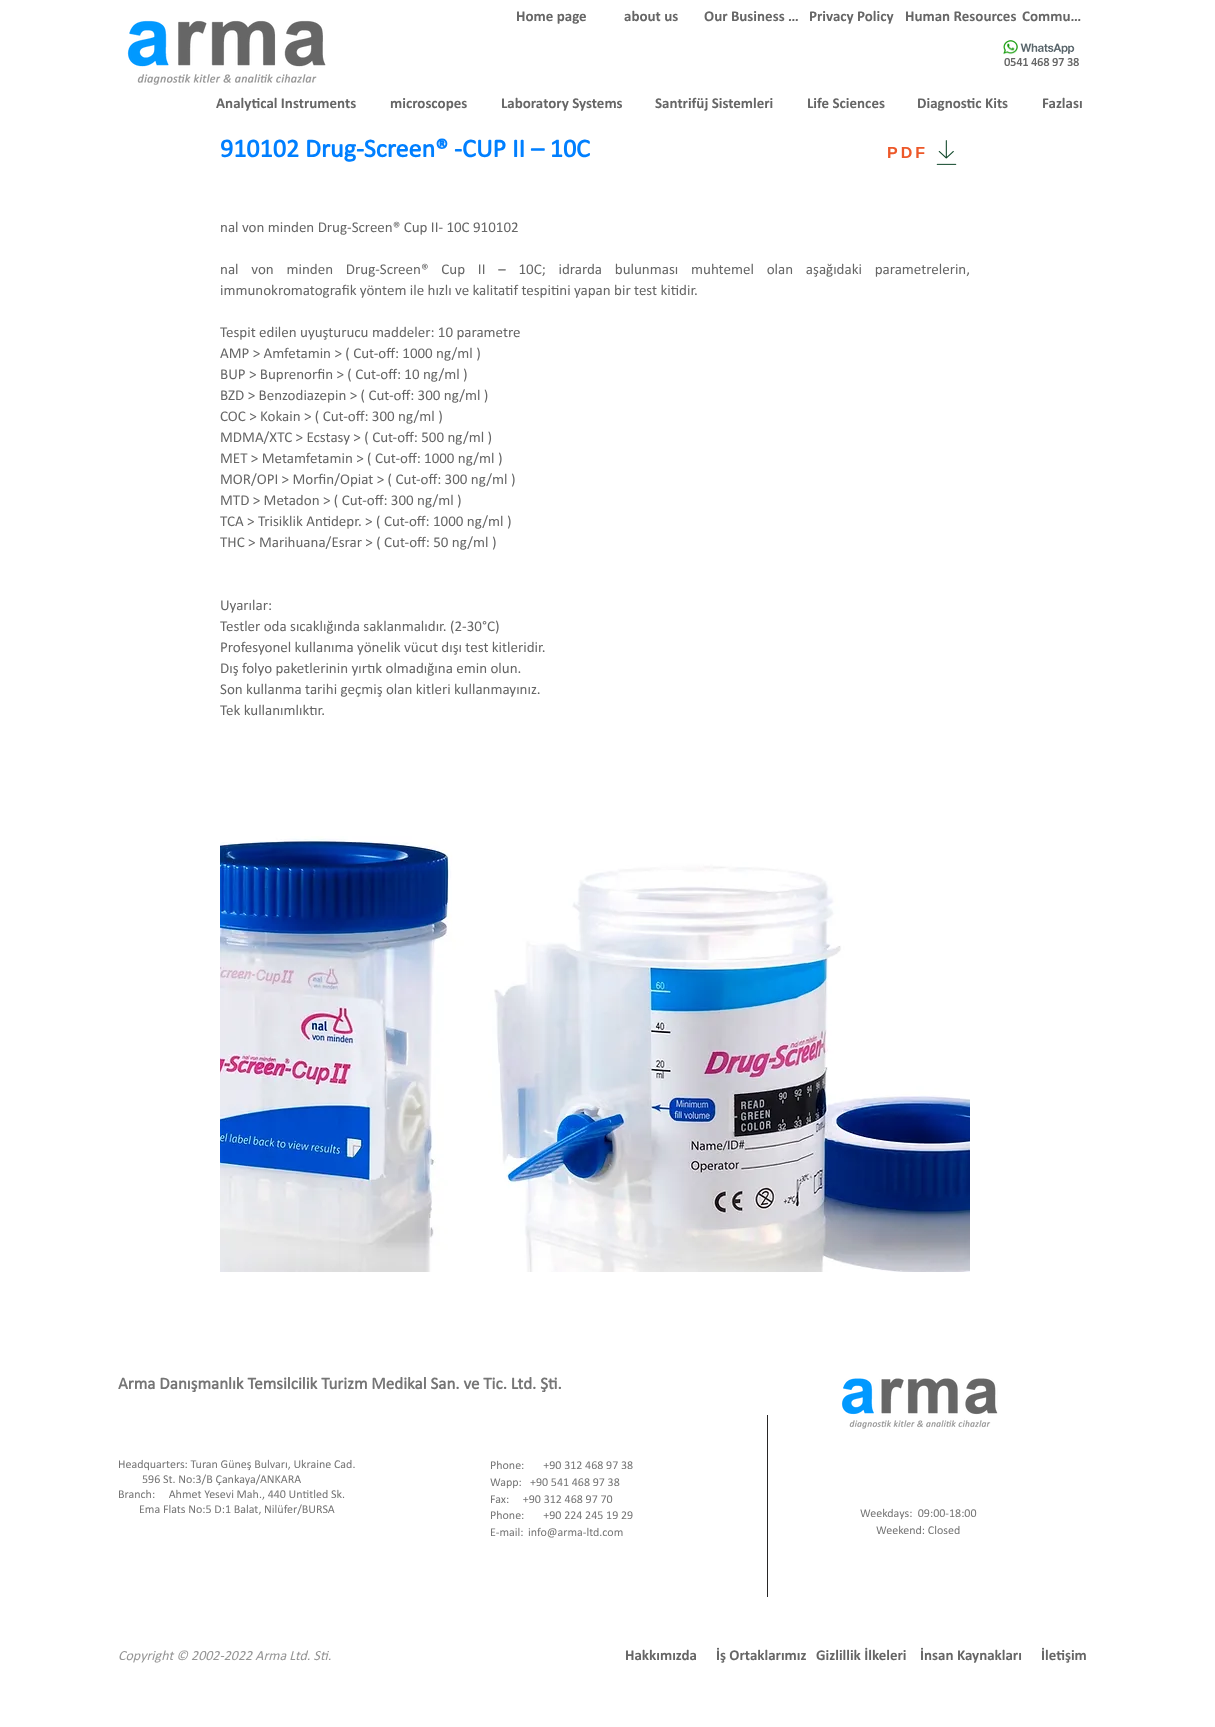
<!DOCTYPE html>
<meta charset="utf-8">
<style>body { margin: 0 } canvas { display: block }</style>
<canvas id="canvas" width="1215" height="1727"></canvas>
<img id="img1" src="images/1.png" hidden>
<img id="img2" src="images/2.png" hidden>
<img id="img3" src="images/3.png" hidden>
<img id="img4" src="images/4.png" hidden>
<img id="img5" src="images/5.png" hidden>
<img id="img6" src="images/6.png" hidden>
<script>
window.onload = function () {
    const canvas = document.getElementById('canvas');
    const context = canvas.getContext('2d');
    context.miterLimit = 4;
    context.fontKerning = 'normal';

    context.fillStyle = 'rgb(255, 255, 255)';
    context.fillRect(0, 0, 1215, 1727);
    context.drawImage(document.getElementById('img1'), 1003, 40, 15, 15);
    context.drawImage(document.getElementById('img2'), 1020, 43, 55, 11);
    context.drawImage(document.getElementById('img3'), 127, 20, 199, 65);
    context.drawImage(document.getElementById('img4'), 936, 140, 21, 25);
    context.drawImage(document.getElementById('img5'), 220, 836, 750, 436);
    context.drawImage(document.getElementById('img6'), 841, 1378, 157, 51);
    context.fillStyle = 'rgb(40, 38, 38)';
    context.fillRect(767, 1415, 1, 182);
    context.font = 'bold 15px "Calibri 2"';
    context.fillStyle = 'rgb(102, 102, 102)';
    context.fillText('Home page', 516, 21);
    context.fillText('about us', 624, 21);
    context.fillText('Our Business …', 704, 21);
    context.fillText('Privacy Policy', 809, 21);
    context.fillText('Human Resources', 905, 21);
    context.fillText('Commu…', 1022, 21);
    context.font = 'bold 12px Calibri';
    context.fillText('0541 468 97 38', 1004, 66);
    context.font = 'bold 15px "Calibri 2"';
    context.fillText('Analytical Instruments', 216, 108);
    context.fillText('microscopes', 390, 108);
    context.fillText('Laboratory Systems', 501, 108);
    context.fillText('Santrifüj Sistemleri', 655, 108);
    context.fillText('Life Sciences', 807, 108);
    context.fillText('Diagnostic Kits', 917, 108);
    context.fillText('Fazlası', 1042, 108);
    context.font = 'bold 26px Calibri';
    context.fillStyle = 'rgb(0, 127, 255)';
    context.fillText('910102 Drug-Screen® -CUP II – 10C', 220, 157);
    context.letterSpacing = '3px';
    context.font = 'bold 16px Liberation Sans';
    context.fillStyle = 'rgb(237, 88, 41)';
    context.fillText('PDF', 887, 158);
    context.letterSpacing = '0px';
    context.font = '15px Calibri';
    context.fillStyle = 'rgb(102, 102, 102)';
    context.fillText('nal von minden Drug-Screen® Cup II- 10C 910102', 220, 232);
    context.wordSpacing = '9.4px';
    context.fillText('nal von minden Drug-Screen® Cup II – 10C; idrarda bulunması muhtemel olan aşağıdaki parametrelerin,', 220, 274);
    context.wordSpacing = '0px';
    context.fillText('immunokromatografik yöntem ile hızlı ve kalitatif tespitini yapan bir test kitidir.', 220, 295);
    context.fillText('Tespit edilen uyuşturucu maddeler: 10 parametre', 220, 337);
    context.fillText('AMP > Amfetamin > ( Cut-off: 1000 ng/ml )', 220, 358);
    context.fillText('BUP > Buprenorfin > ( Cut-off: 10 ng/ml )', 220, 379);
    context.fillText('BZD > Benzodiazepin > ( Cut-off: 300 ng/ml )', 220, 400);
    context.fillText('COC > Kokain > ( Cut-off: 300 ng/ml )', 220, 421);
    context.fillText('MDMA/XTC > Ecstasy > ( Cut-off: 500 ng/ml )', 220, 442);
    context.fillText('MET > Metamfetamin > ( Cut-off: 1000 ng/ml )', 220, 463);
    context.fillText('MOR/OPI > Morfin/Opiat > ( Cut-off: 300 ng/ml )', 220, 484);
    context.fillText('MTD > Metadon > ( Cut-off: 300 ng/ml )', 220, 505);
    context.fillText('TCA > Trisiklik Antidepr. > ( Cut-off: 1000 ng/ml )', 220, 526);
    context.fillText('THC > Marihuana/Esrar > ( Cut-off: 50 ng/ml )', 220, 547);
    context.fillText('Uyarılar:', 220, 610);
    context.fillText('Testler oda sıcaklığında saklanmalıdır. (2-30°C)', 220, 631);
    context.fillText('Profesyonel kullanıma yönelik vücut dışı test kitleridir.', 220, 652);
    context.fillText('Dış folyo paketlerinin yırtık olmadığına emin olun.', 220, 673);
    context.fillText('Son kullanma tarihi geçmiş olan kitleri kullanmayınız.', 220, 694);
    context.fillText('Tek kullanımlıktır.', 220, 715);
    context.font = 'bold 17px Calibri';
    context.fillStyle = 'rgb(117, 117, 117)';
    context.fillText('Arma Danışmanlık Temsilcilik Turizm Medikal San. ve Tic. Ltd. Şti.', 118, 1389);
    context.font = '12px Calibri';
    context.fillText('Headquarters: Turan Güneş Bulvarı, Ukraine Cad.', 118, 1468);
    context.fillText('596 St. No:3/B Çankaya/ANKARA', 142, 1483);
    context.fillText('Branch:     Ahmet Yesevi Mah., 440 Untitled Sk.', 118, 1498);
    context.fillText('Ema Flats No:5 D:1 Balat, Nilüfer/BURSA', 139, 1513);
    context.fillText('Phone:       +90 312 468 97 38', 490, 1469);
    context.fillText('Wapp:   +90 541 468 97 38', 490, 1486);
    context.fillText('Fax:     +90 312 468 97 70', 490, 1503);
    context.fillText('Phone:       +90 224 245 19 29', 490, 1519);
    context.fillText('E-mail:', 490, 1536);
    context.fillText('info@arma-ltd.com', 528, 1536);
    context.fillText('Weekdays:  09:00-18:00', 860, 1517);
    context.fillText('Weekend: Closed', 876, 1534);
    context.font = 'italic 14px Calibri';
    context.fillStyle = 'rgb(149, 149, 149)';
    context.fillText('Copyright © 2002-2022 Arma Ltd. Sti.', 118, 1660);
    context.font = 'bold 15px "Calibri 2"';
    context.fillStyle = 'rgb(102, 102, 102)';
    context.fillText('Hakkımızda', 625, 1660);
    context.fillText('İş Ortaklarımız', 716, 1660);
    context.fillText('Gizlillik İlkeleri', 816, 1660);
    context.fillText('İnsan Kaynakları', 920, 1660);
    context.fillText('İletişim', 1041, 1660);
};
</script>
